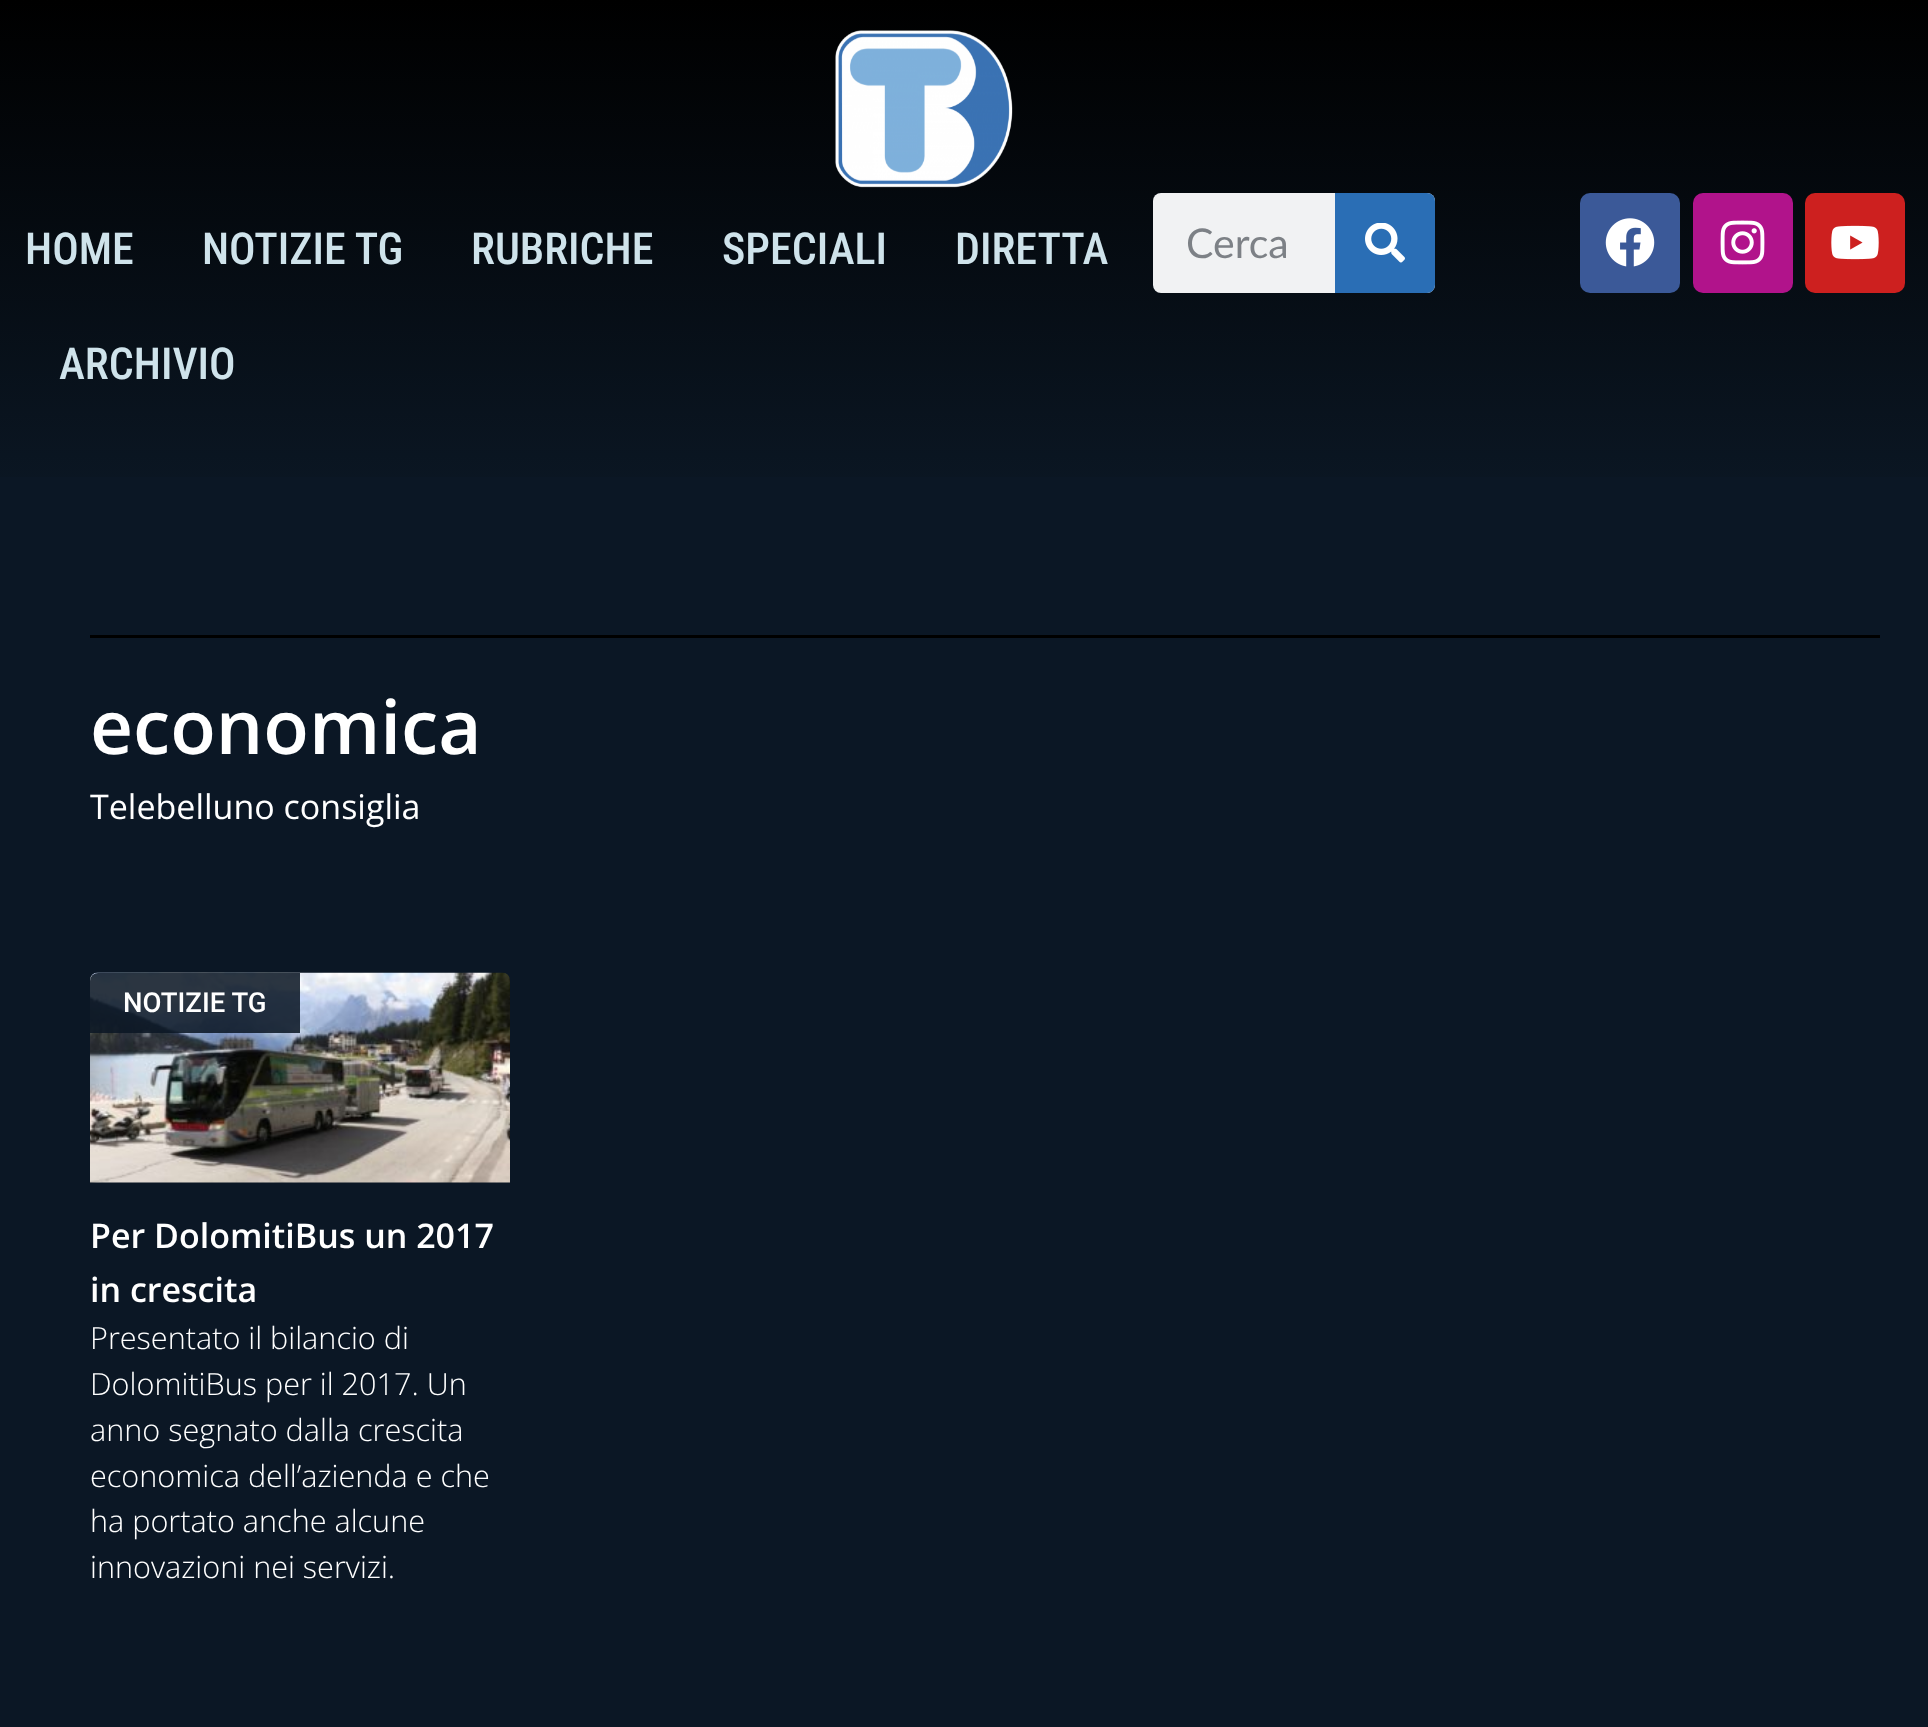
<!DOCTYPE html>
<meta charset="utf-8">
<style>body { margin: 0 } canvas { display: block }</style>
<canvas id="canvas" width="1928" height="1727"></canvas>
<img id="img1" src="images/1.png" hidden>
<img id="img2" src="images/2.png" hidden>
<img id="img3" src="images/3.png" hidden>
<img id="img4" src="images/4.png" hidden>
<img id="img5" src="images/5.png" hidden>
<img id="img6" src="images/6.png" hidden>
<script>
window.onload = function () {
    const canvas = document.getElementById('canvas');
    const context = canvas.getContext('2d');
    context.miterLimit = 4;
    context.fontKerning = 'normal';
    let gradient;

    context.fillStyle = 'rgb(11, 23, 37)';
    context.fillRect(0, 0, 1928, 1727);
    gradient = context.createLinearGradient(965, 0, 965, 498);
    gradient.addColorStop(0, 'rgb(0, 0, 0)');
    gradient.addColorStop(1, 'rgb(11, 23, 36)');
    context.fillStyle = gradient;
    context.fillRect(0, 0, 1928, 477);
    context.drawImage(document.getElementById('img1'), 835, 30, 178, 158);
    context.fillStyle = 'rgb(241, 242, 243)';
    context.beginPath();
    context.roundRect(1153, 193, 282, 100, 8);
    context.fill();
    context.fillStyle = 'rgb(42, 110, 181)';
    context.beginPath();
    context.roundRect(1335, 193, 100, 100, [0, 8, 8, 0]);
    context.fill();
    context.drawImage(document.getElementById('img2'), 1365, 223, 40, 40);
    context.fillStyle = 'rgb(59, 89, 152)';
    context.beginPath();
    context.roundRect(1580, 193, 100, 100, 10);
    context.fill();
    context.drawImage(document.getElementById('img3'), 1605, 218, 50, 49);
    context.fillStyle = 'rgb(177, 19, 139)';
    context.beginPath();
    context.roundRect(1693, 193, 100, 100, 10);
    context.fill();
    context.drawImage(document.getElementById('img4'), 1720, 220, 45, 45);
    context.fillStyle = 'rgb(205, 32, 31)';
    context.beginPath();
    context.roundRect(1805, 193, 100, 100, 10);
    context.fill();
    context.drawImage(document.getElementById('img5'), 1831, 225, 48, 35);
    context.fillStyle = 'rgb(0, 0, 0)';
    context.fillRect(90, 635, 1790, 3);
    context.drawImage(document.getElementById('img6'), 90, 972, 420, 211);
    context.fillStyle = 'rgba(11, 23, 37, 0.87)';
    context.beginPath();
    context.roundRect(90, 973, 210, 60, [8, 0, 0, 0]);
    context.fill();
    context.font = '500 44px Roboto Condensed';
    context.fillStyle = 'rgb(207, 227, 235)';
    context.fillText('HOME', 25, 264);
    context.fillText('NOTIZIE TG', 202, 264);
    context.fillText('RUBRICHE', 471, 264);
    context.fillText('SPECIALI', 722, 264);
    context.fillText('DIRETTA', 955, 264);
    context.fillText('ARCHIVIO', 59, 379);
    context.font = '41px Lato';
    context.fillStyle = 'rgb(125, 129, 134)';
    context.fillText('Cerca', 1186, 258);
    context.font = '600 74.75px Open Sans';
    context.fillStyle = 'rgb(255, 255, 255)';
    context.fillText('economica', 90, 754);
    context.font = '34px Open Sans';
    context.fillText('Telebelluno consiglia', 90, 819);
    context.font = '500 27.5px Roboto';
    context.fillText('NOTIZIE TG', 123, 1012);
    context.font = '600 34px Open Sans';
    context.fillText('Per DolomitiBus un 2017', 90, 1248);
    context.fillText('in crescita', 90, 1302);
    context.font = '300 30.6px Open Sans';
    context.fillText('Presentato il bilancio di', 90, 1349);
    context.fillText('DolomitiBus per il 2017. Un', 90, 1395);
    context.fillText('anno segnato dalla crescita', 90, 1441);
    context.fillText('economica dell’azienda e che', 90, 1487);
    context.fillText('ha portato anche alcune', 90, 1532);
    context.fillText('innovazioni nei servizi.', 90, 1578);
};
</script>
